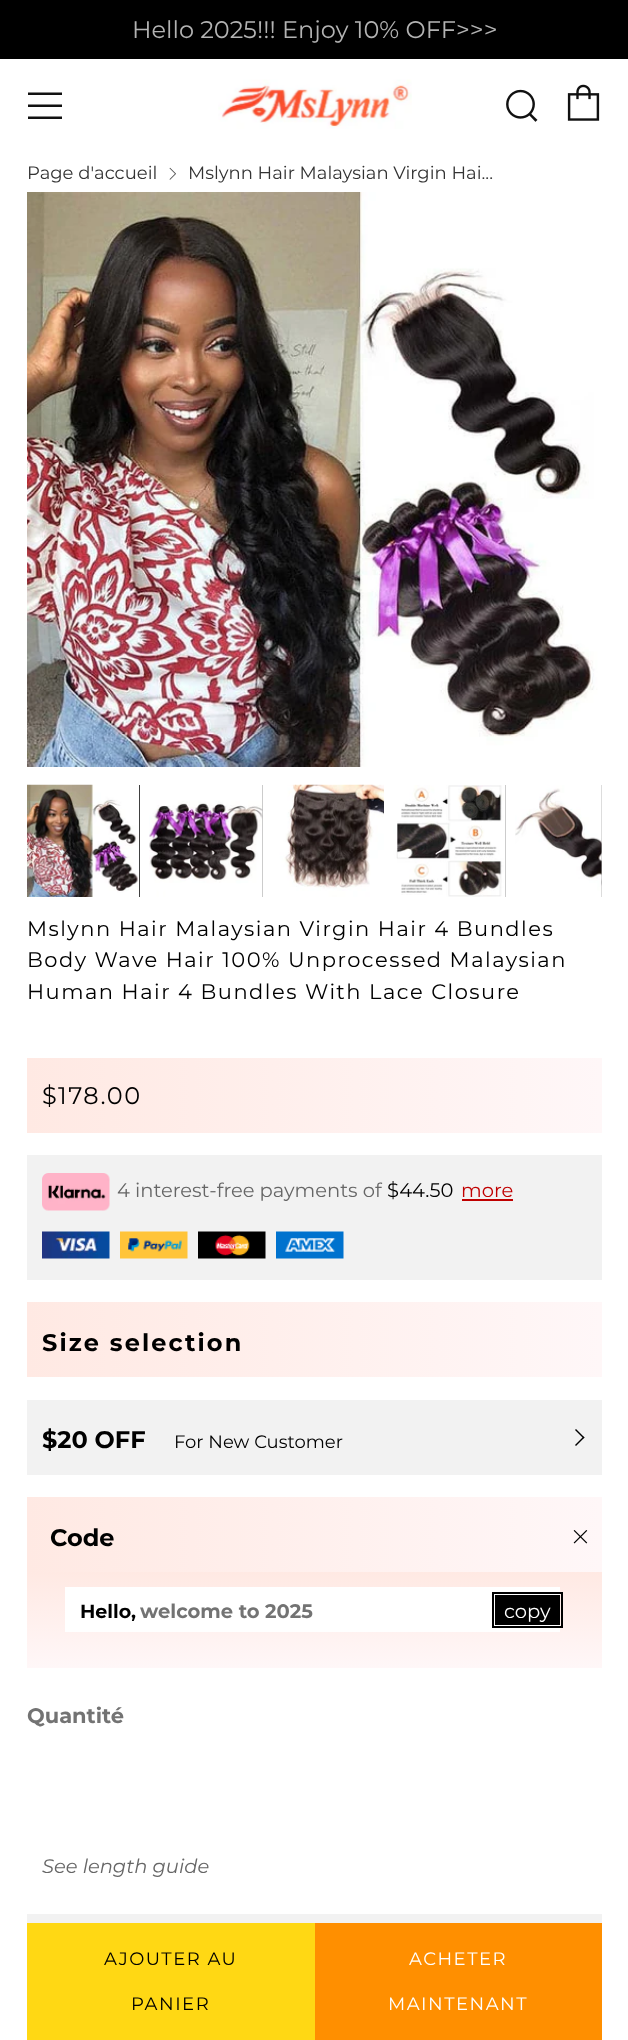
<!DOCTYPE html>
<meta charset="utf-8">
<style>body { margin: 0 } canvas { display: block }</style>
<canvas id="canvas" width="628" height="2040"></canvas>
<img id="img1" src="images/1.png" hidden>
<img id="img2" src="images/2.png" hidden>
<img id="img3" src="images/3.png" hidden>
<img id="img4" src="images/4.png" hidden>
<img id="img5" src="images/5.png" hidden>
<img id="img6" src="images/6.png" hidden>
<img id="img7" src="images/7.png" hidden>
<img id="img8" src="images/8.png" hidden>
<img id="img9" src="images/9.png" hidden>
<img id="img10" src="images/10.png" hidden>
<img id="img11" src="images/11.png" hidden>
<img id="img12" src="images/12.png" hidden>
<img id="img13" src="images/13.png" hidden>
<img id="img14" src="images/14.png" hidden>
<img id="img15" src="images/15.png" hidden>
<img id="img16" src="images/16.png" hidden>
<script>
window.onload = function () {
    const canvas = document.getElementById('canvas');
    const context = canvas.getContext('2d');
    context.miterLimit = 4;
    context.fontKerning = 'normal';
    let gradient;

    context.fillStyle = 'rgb(255, 255, 255)';
    context.fillRect(0, 0, 628, 2040);
    context.fillStyle = 'rgb(0, 0, 0)';
    context.fillRect(0, 0, 628, 59);
    context.fillStyle = 'rgb(17, 17, 17)';
    context.beginPath();
    context.moveTo(28, 95);
    context.lineTo(62, 95);
    context.lineTo(62, 92.5);
    context.lineTo(28, 92.5);
    context.closePath();
    context.moveTo(28, 119);
    context.lineTo(62, 119);
    context.lineTo(62, 116.5);
    context.lineTo(28, 116.5);
    context.closePath();
    context.moveTo(28, 107);
    context.lineTo(62, 107);
    context.lineTo(62, 104.5);
    context.lineTo(28, 104.5);
    context.closePath();
    context.fill();
    context.drawImage(document.getElementById('img1'), 218, 79, 194, 50);
    context.drawImage(document.getElementById('img2'), 506, 89, 32, 33);
    context.drawImage(document.getElementById('img3'), 567, 84, 33, 37);
    context.drawImage(document.getElementById('img4'), 169, 167, 7, 13);
    context.drawImage(document.getElementById('img5'), 27, 192, 575, 575);
    context.fillStyle = 'rgb(0, 0, 0)';
    context.fillRect(139, 785, 1, 112);
    context.drawImage(document.getElementById('img6'), 27, 784, 113, 113);
    context.fillStyle = 'rgb(187, 187, 187)';
    context.fillRect(262, 785, 1, 112);
    context.drawImage(document.getElementById('img7'), 149, 785, 114, 112);
    context.drawImage(document.getElementById('img8'), 272, 784, 112, 113);
    context.fillRect(505, 785, 1, 112);
    context.drawImage(document.getElementById('img9'), 393, 785, 113, 112);
    context.fillRect(601, 785, 1, 112);
    context.drawImage(document.getElementById('img10'), 515, 785, 87, 112);
    gradient = context.createLinearGradient(602, 1095, 27, 1095);
    gradient.addColorStop(0, 'rgb(255, 247, 248)');
    gradient.addColorStop(1, 'rgb(255, 233, 227)');
    context.fillStyle = gradient;
    context.fillRect(27, 1058, 575, 75);
    context.fillStyle = 'rgb(242, 242, 242)';
    context.fillRect(27, 1155, 575, 125);
    context.drawImage(document.getElementById('img11'), 42, 1173, 68, 38);
    context.fillStyle = 'rgb(192, 0, 0)';
    context.fillRect(462, 1199, 51, 2);
    context.drawImage(document.getElementById('img12'), 42, 1231, 68, 28);
    context.drawImage(document.getElementById('img13'), 120, 1231, 68, 28);
    context.drawImage(document.getElementById('img14'), 198, 1231, 68, 28);
    context.drawImage(document.getElementById('img15'), 276, 1231, 68, 28);
    gradient = context.createLinearGradient(602, 1340, 27, 1340);
    gradient.addColorStop(0, 'rgb(255, 247, 248)');
    gradient.addColorStop(1, 'rgb(255, 233, 227)');
    context.fillStyle = gradient;
    context.fillRect(27, 1302, 575, 75);
    context.fillStyle = 'rgb(242, 242, 242)';
    context.fillRect(27, 1400, 575, 75);
    context.fillStyle = 'rgb(0, 0, 0)';
    context.beginPath();
    context.moveTo(576, 1429);
    context.lineTo(584.5, 1437.5);
    context.lineTo(583.5, 1438.5);
    context.lineTo(575, 1430);
    context.closePath();
    context.fill();
    context.beginPath();
    context.moveTo(583.5, 1436.5);
    context.lineTo(584.5, 1437.5);
    context.lineTo(576, 1446);
    context.lineTo(575, 1445);
    context.closePath();
    context.fill();
    gradient = context.createLinearGradient(602, 1535, 27, 1535);
    gradient.addColorStop(0, 'rgb(255, 247, 248)');
    gradient.addColorStop(1, 'rgb(255, 233, 227)');
    context.fillStyle = gradient;
    context.fillRect(27, 1497, 575, 75);
    context.drawImage(document.getElementById('img16'), 573, 1530, 15, 14);
    gradient = context.createLinearGradient(314, 1668, 314, 1572);
    gradient.addColorStop(0, 'rgb(255, 247, 248)');
    gradient.addColorStop(1, 'rgb(255, 233, 227)');
    context.fillStyle = gradient;
    context.fillRect(27, 1572, 575, 96);
    context.fillStyle = 'rgb(255, 255, 255)';
    context.fillRect(65, 1587, 495, 45);
    context.fillStyle = 'rgb(0, 0, 0)';
    context.fillRect(495, 1595, 65, 30);
    context.strokeStyle = 'rgb(0, 0, 0)';
    context.lineWidth = 2;
    context.strokeRect(493, 1593, 69, 34);
    context.fillStyle = 'rgb(242, 242, 242)';
    context.fillRect(27, 1914, 575, 9);
    context.fillStyle = 'rgb(255, 216, 20)';
    context.fillRect(27, 1923, 288, 117);
    context.fillStyle = 'rgb(255, 143, 0)';
    context.fillRect(315, 1923, 287, 117);
    context.font = '24px Montserrat';
    context.fillStyle = 'rgb(179, 179, 179)';
    context.fillText('Hello 2025!!! Enjoy 10% OFF>>>', 132, 38);
    context.font = '18px Montserrat';
    context.fillStyle = 'rgb(51, 51, 51)';
    context.fillText('Page d\'accueil', 27, 179);
    context.fillText('Mslynn Hair Malaysian Virgin Hai...', 188, 179);
    context.letterSpacing = '1.5px';
    context.font = '21px Montserrat';
    context.fillStyle = 'rgb(0, 0, 0)';
    context.fillText('Mslynn Hair Malaysian Virgin Hair 4 Bundles', 27, 936);
    context.fillText('Body Wave Hair 100% Unprocessed Malaysian', 27, 967);
    context.fillText('Human Hair 4 Bundles With Lace Closure', 27, 999);
    context.font = '24px Montserrat';
    context.fillText('$178.00', 42, 1104);
    context.letterSpacing = '0px';
    context.font = '19.5px Montserrat';
    context.fillStyle = 'rgb(102, 102, 102)';
    context.fillText('4 interest-free payments of', 117, 1197);
    context.fillStyle = 'rgb(0, 0, 0)';
    context.fillText('$44.50', 387, 1197);
    context.fillStyle = 'rgb(192, 0, 0)';
    context.fillText('more', 461, 1197);
    context.letterSpacing = '2.1px';
    context.font = 'bold 24px Montserrat';
    context.fillStyle = 'rgb(0, 0, 0)';
    context.fillText('Size selection', 42, 1351);
    context.letterSpacing = '0px';
    context.fillText('$20 OFF', 42, 1448);
    context.font = '18px Montserrat';
    context.fillText('For New Customer', 174, 1448);
    context.font = 'bold 24px Montserrat';
    context.fillText('Code', 50, 1546);
    context.font = 'bold 19px Montserrat';
    context.fillText('Hello,', 80, 1618);
    context.font = 'bold 19.5px Montserrat';
    context.fillStyle = 'rgb(115, 115, 115)';
    context.fillText('welcome to 2025', 140, 1618);
    context.font = '19.5px Montserrat';
    context.fillStyle = 'rgb(255, 255, 255)';
    context.fillText('copy', 504, 1618);
    context.font = 'bold 21px Montserrat';
    context.fillStyle = 'rgb(115, 115, 115)';
    context.fillText('Quantité', 27, 1723);
    context.font = 'italic 19.5px Montserrat';
    context.fillStyle = 'rgb(102, 102, 102)';
    context.fillText('See length guide', 42, 1873);
    context.letterSpacing = '1.5px';
    context.font = '18px Montserrat';
    context.fillStyle = 'rgb(0, 0, 0)';
    context.fillText('AJOUTER AU', 104, 1965);
    context.fillText('PANIER', 131, 2010);
    context.fillStyle = 'rgb(255, 255, 255)';
    context.fillText('ACHETER', 409, 1965);
    context.fillText('MAINTENANT', 388, 2010);
};
</script>
